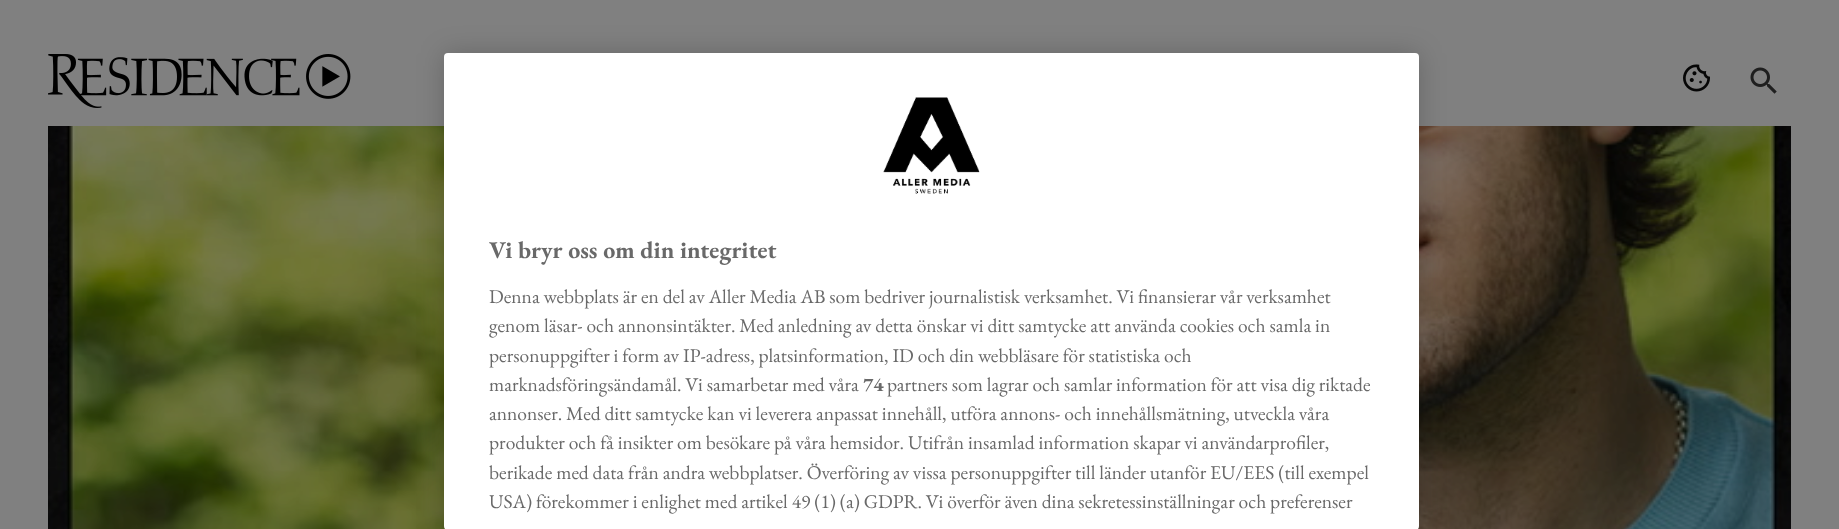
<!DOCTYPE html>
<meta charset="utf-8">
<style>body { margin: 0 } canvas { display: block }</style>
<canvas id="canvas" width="1839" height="529"></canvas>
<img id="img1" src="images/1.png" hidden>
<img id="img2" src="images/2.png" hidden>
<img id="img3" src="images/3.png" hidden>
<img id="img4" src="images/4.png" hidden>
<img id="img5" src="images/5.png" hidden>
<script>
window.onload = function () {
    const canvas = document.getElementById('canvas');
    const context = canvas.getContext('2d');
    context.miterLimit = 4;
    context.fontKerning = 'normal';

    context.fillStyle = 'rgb(128, 128, 128)';
    context.fillRect(0, 0, 1839, 529);
    context.drawImage(document.getElementById('img1'), 48, 54, 303, 54);
    context.drawImage(document.getElementById('img2'), 1683, 64, 27, 28);
    context.drawImage(document.getElementById('img3'), 1750, 67, 27, 27);
    context.drawImage(document.getElementById('img4'), 48, 126, 1743, 403);
    context.fillStyle = 'rgba(0, 0, 0, 0.2)';
    context.filter = 'blur(13.5px)';
    context.beginPath();
    context.roundRect(444, 53, 975, 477, 4);
    context.fill();
    context.filter = 'none';
    context.fillStyle = 'rgb(255, 255, 255)';
    context.beginPath();
    context.roundRect(444, 53, 975, 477, 4);
    context.fill();
    context.drawImage(document.getElementById('img5'), 883, 97, 97, 97);
    context.font = 'bold 24px EB Garamond';
    context.fillStyle = 'rgb(105, 105, 105)';
    context.fillText('Vi bryr oss om din integritet', 489, 258);
    context.font = '19.5px EB Garamond';
    context.fillText('Denna webbplats är en del av Aller Media AB som bedriver journalistisk verksamhet. Vi finansierar vår verksamhet', 489, 303);
    context.fillText('genom läsar- och annonsintäkter. Med anledning av detta önskar vi ditt samtycke att använda cookies och samla in', 489, 332);
    context.fillText('personuppgifter i form av IP-adress, platsinformation, ID och din webbläsare för statistiska och', 489, 362);
    context.fillText('marknadsföringsändamål. Vi samarbetar med våra', 489, 391);
    context.font = 'bold 19.5px EB Garamond';
    context.fillText('74', 863, 391);
    context.font = '19.5px EB Garamond';
    context.fillText('partners som lagrar och samlar information för att visa dig riktade', 887, 391);
    context.fillText('annonser. Med ditt samtycke kan vi leverera anpassat innehåll, utföra annons- och innehållsmätning, utveckla våra', 489, 420);
    context.fillText('produkter och få insikter om besökare på våra hemsidor. Utifrån insamlad information skapar vi användarprofiler,', 489, 449);
    context.fillText('berikade med data från andra webbplatser. Överföring av vissa personuppgifter till länder utanför EU/EES (till exempel', 489, 479);
    context.fillText('USA) förekommer i enlighet med artikel 49 (1) (a) GDPR. Vi överför även dina sekretessinställningar och preferenser', 489, 508);
};
</script>
